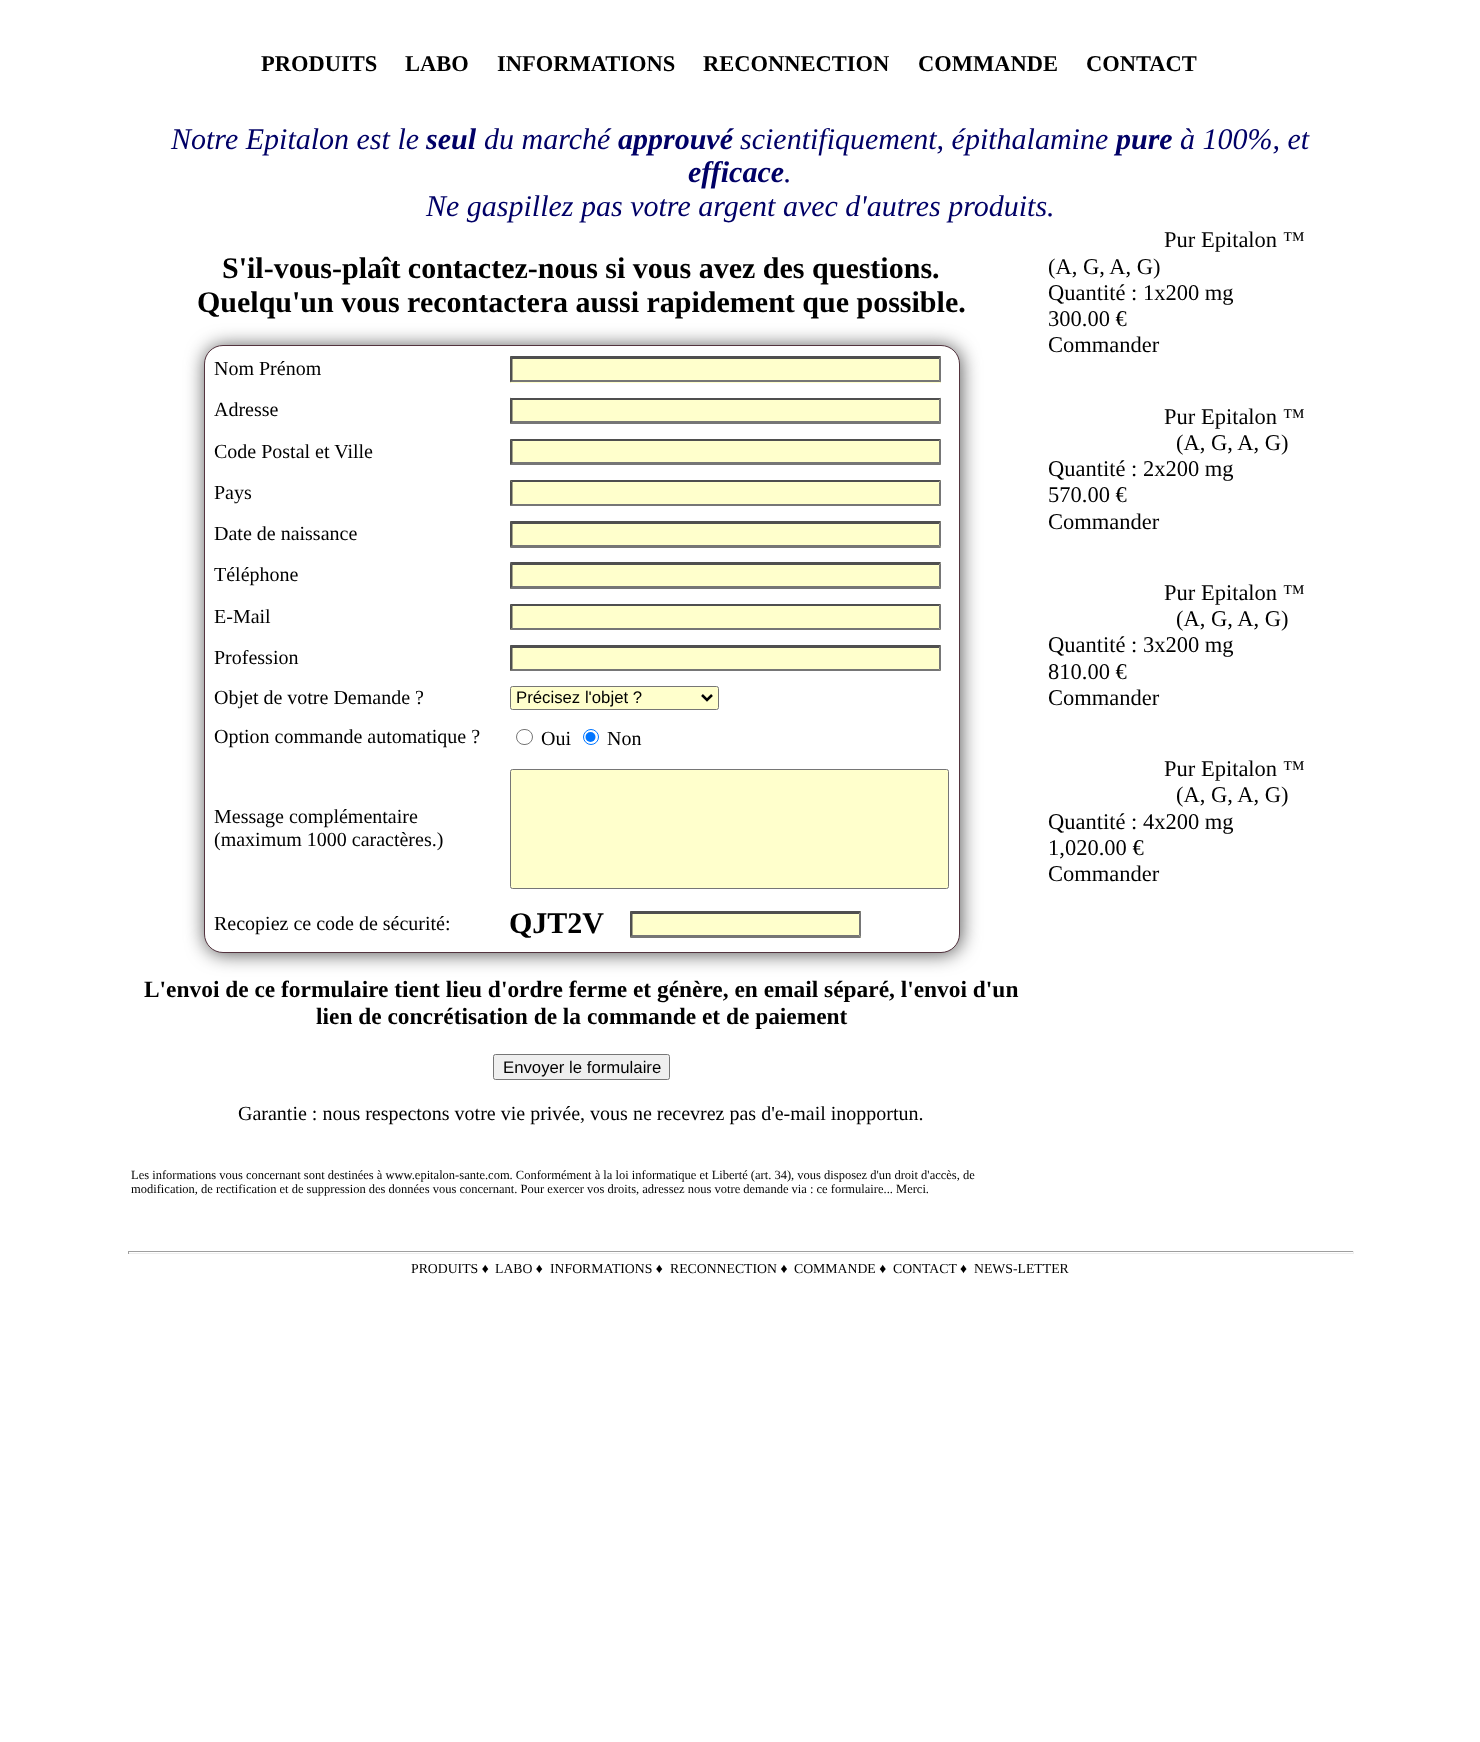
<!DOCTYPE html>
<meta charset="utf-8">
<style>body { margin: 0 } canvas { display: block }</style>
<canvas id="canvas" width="1480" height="1742"></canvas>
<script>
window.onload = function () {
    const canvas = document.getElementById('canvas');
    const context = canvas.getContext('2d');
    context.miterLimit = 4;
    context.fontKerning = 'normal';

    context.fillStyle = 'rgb(255, 255, 255)';
    context.fillRect(0, 0, 1480, 1742);
    context.fillStyle = 'rgb(85, 85, 85)';
    context.filter = 'blur(9.5px)';
    context.beginPath();
    context.roundRect(205, 346, 756, 608, 19);
    context.fill();
    context.filter = 'none';
    context.fillStyle = 'rgb(255, 255, 255)';
    context.beginPath();
    context.roundRect(204.5, 345.5, 755, 607, 18.5);
    context.fill();
    context.strokeStyle = 'rgb(83, 51, 62)';
    context.stroke();
    context.fillStyle = 'rgb(255, 255, 204)';
    context.fillRect(510, 356, 431, 27);
    context.fillStyle = 'rgb(79, 79, 79)';
    context.beginPath();
    context.moveTo(510, 356);
    context.lineTo(941, 356);
    context.lineTo(939, 359);
    context.lineTo(512, 359);
    context.closePath();
    context.fill();
    context.fillStyle = 'rgb(118, 118, 118)';
    context.beginPath();
    context.moveTo(941, 356);
    context.lineTo(941, 382.5);
    context.lineTo(939, 380);
    context.lineTo(939, 359);
    context.closePath();
    context.fill();
    context.beginPath();
    context.moveTo(941, 382);
    context.lineTo(510, 382);
    context.lineTo(512, 380);
    context.lineTo(939, 380);
    context.closePath();
    context.fill();
    context.fillStyle = 'rgb(79, 79, 79)';
    context.beginPath();
    context.moveTo(510, 382.5);
    context.lineTo(510, 356);
    context.lineTo(512.5, 359);
    context.lineTo(512.5, 380);
    context.closePath();
    context.fill();
    context.fillStyle = 'rgb(255, 255, 204)';
    context.fillRect(510, 398, 431, 26);
    context.fillStyle = 'rgb(79, 79, 79)';
    context.beginPath();
    context.moveTo(510, 398);
    context.lineTo(941, 398);
    context.lineTo(939, 400);
    context.lineTo(512, 400);
    context.closePath();
    context.fill();
    context.fillStyle = 'rgb(118, 118, 118)';
    context.beginPath();
    context.moveTo(941, 397.5);
    context.lineTo(941, 424);
    context.lineTo(939, 421);
    context.lineTo(939, 400);
    context.closePath();
    context.fill();
    context.beginPath();
    context.moveTo(941, 424);
    context.lineTo(510, 424);
    context.lineTo(512, 421);
    context.lineTo(939, 421);
    context.closePath();
    context.fill();
    context.fillStyle = 'rgb(79, 79, 79)';
    context.beginPath();
    context.moveTo(510, 424);
    context.lineTo(510, 397.5);
    context.lineTo(512.5, 400);
    context.lineTo(512.5, 421);
    context.closePath();
    context.fill();
    context.fillStyle = 'rgb(255, 255, 204)';
    context.fillRect(510, 439, 431, 26);
    context.fillStyle = 'rgb(79, 79, 79)';
    context.beginPath();
    context.moveTo(510, 439);
    context.lineTo(941, 439);
    context.lineTo(939, 441);
    context.lineTo(512, 441);
    context.closePath();
    context.fill();
    context.fillStyle = 'rgb(118, 118, 118)';
    context.beginPath();
    context.moveTo(941, 439);
    context.lineTo(941, 465);
    context.lineTo(939, 462.5);
    context.lineTo(939, 441);
    context.closePath();
    context.fill();
    context.beginPath();
    context.moveTo(941, 465);
    context.lineTo(510, 465);
    context.lineTo(512, 462);
    context.lineTo(939, 462);
    context.closePath();
    context.fill();
    context.fillStyle = 'rgb(79, 79, 79)';
    context.beginPath();
    context.moveTo(510, 465);
    context.lineTo(510, 439);
    context.lineTo(512.5, 441);
    context.lineTo(512.5, 462.5);
    context.closePath();
    context.fill();
    context.fillStyle = 'rgb(255, 255, 204)';
    context.fillRect(510, 480, 431, 26);
    context.fillStyle = 'rgb(79, 79, 79)';
    context.beginPath();
    context.moveTo(510, 480);
    context.lineTo(941, 480);
    context.lineTo(939, 482);
    context.lineTo(512, 482);
    context.closePath();
    context.fill();
    context.fillStyle = 'rgb(118, 118, 118)';
    context.beginPath();
    context.moveTo(941, 480);
    context.lineTo(941, 506);
    context.lineTo(939, 504);
    context.lineTo(939, 482.5);
    context.closePath();
    context.fill();
    context.beginPath();
    context.moveTo(941, 506);
    context.lineTo(510, 506);
    context.lineTo(512, 504);
    context.lineTo(939, 504);
    context.closePath();
    context.fill();
    context.fillStyle = 'rgb(79, 79, 79)';
    context.beginPath();
    context.moveTo(510, 506);
    context.lineTo(510, 480);
    context.lineTo(512.5, 482.5);
    context.lineTo(512.5, 504);
    context.closePath();
    context.fill();
    context.fillStyle = 'rgb(255, 255, 204)';
    context.fillRect(510, 521, 431, 27);
    context.fillStyle = 'rgb(79, 79, 79)';
    context.beginPath();
    context.moveTo(510, 521);
    context.lineTo(941, 521);
    context.lineTo(939, 524);
    context.lineTo(512, 524);
    context.closePath();
    context.fill();
    context.fillStyle = 'rgb(118, 118, 118)';
    context.beginPath();
    context.moveTo(941, 521);
    context.lineTo(941, 547.5);
    context.lineTo(939, 545);
    context.lineTo(939, 524);
    context.closePath();
    context.fill();
    context.beginPath();
    context.moveTo(941, 548);
    context.lineTo(510, 548);
    context.lineTo(512, 545);
    context.lineTo(939, 545);
    context.closePath();
    context.fill();
    context.fillStyle = 'rgb(79, 79, 79)';
    context.beginPath();
    context.moveTo(510, 547.5);
    context.lineTo(510, 521);
    context.lineTo(512.5, 524);
    context.lineTo(512.5, 545);
    context.closePath();
    context.fill();
    context.fillStyle = 'rgb(255, 255, 204)';
    context.fillRect(510, 563, 431, 26);
    context.fillStyle = 'rgb(79, 79, 79)';
    context.beginPath();
    context.moveTo(510, 562);
    context.lineTo(941, 562);
    context.lineTo(939, 565);
    context.lineTo(512, 565);
    context.closePath();
    context.fill();
    context.fillStyle = 'rgb(118, 118, 118)';
    context.beginPath();
    context.moveTo(941, 562.5);
    context.lineTo(941, 589);
    context.lineTo(939, 586);
    context.lineTo(939, 565);
    context.closePath();
    context.fill();
    context.beginPath();
    context.moveTo(941, 589);
    context.lineTo(510, 589);
    context.lineTo(512, 586);
    context.lineTo(939, 586);
    context.closePath();
    context.fill();
    context.fillStyle = 'rgb(79, 79, 79)';
    context.beginPath();
    context.moveTo(510, 589);
    context.lineTo(510, 562.5);
    context.lineTo(512.5, 565);
    context.lineTo(512.5, 586);
    context.closePath();
    context.fill();
    context.fillStyle = 'rgb(255, 255, 204)';
    context.fillRect(510, 604, 431, 26);
    context.fillStyle = 'rgb(79, 79, 79)';
    context.beginPath();
    context.moveTo(510, 604);
    context.lineTo(941, 604);
    context.lineTo(939, 606);
    context.lineTo(512, 606);
    context.closePath();
    context.fill();
    context.fillStyle = 'rgb(118, 118, 118)';
    context.beginPath();
    context.moveTo(941, 604);
    context.lineTo(941, 630);
    context.lineTo(939, 627.5);
    context.lineTo(939, 606);
    context.closePath();
    context.fill();
    context.beginPath();
    context.moveTo(941, 630);
    context.lineTo(510, 630);
    context.lineTo(512, 628);
    context.lineTo(939, 628);
    context.closePath();
    context.fill();
    context.fillStyle = 'rgb(79, 79, 79)';
    context.beginPath();
    context.moveTo(510, 630);
    context.lineTo(510, 604);
    context.lineTo(512.5, 606);
    context.lineTo(512.5, 627.5);
    context.closePath();
    context.fill();
    context.fillStyle = 'rgb(255, 255, 204)';
    context.fillRect(510, 645, 431, 26);
    context.fillStyle = 'rgb(79, 79, 79)';
    context.beginPath();
    context.moveTo(510, 645);
    context.lineTo(941, 645);
    context.lineTo(939, 648);
    context.lineTo(512, 648);
    context.closePath();
    context.fill();
    context.fillStyle = 'rgb(118, 118, 118)';
    context.beginPath();
    context.moveTo(941, 645);
    context.lineTo(941, 671);
    context.lineTo(939, 669);
    context.lineTo(939, 647.5);
    context.closePath();
    context.fill();
    context.beginPath();
    context.moveTo(941, 671);
    context.lineTo(510, 671);
    context.lineTo(512, 669);
    context.lineTo(939, 669);
    context.closePath();
    context.fill();
    context.fillStyle = 'rgb(79, 79, 79)';
    context.beginPath();
    context.moveTo(510, 671);
    context.lineTo(510, 645);
    context.lineTo(512.5, 647.5);
    context.lineTo(512.5, 669);
    context.closePath();
    context.fill();
    context.fillStyle = 'rgb(255, 255, 204)';
    context.beginPath();
    context.roundRect(510.5, 686.5, 208, 23, 2);
    context.fill();
    context.strokeStyle = 'rgb(118, 118, 118)';
    context.stroke();
    context.beginPath();
    context.moveTo(702, 695);
    context.lineTo(707, 700);
    context.lineTo(712, 695);
    context.strokeStyle = 'rgb(0, 0, 0)';
    context.lineWidth = 2.5;
    context.stroke();
    context.beginPath();
    context.roundRect(516.5, 729.5, 16, 15, 7.5);
    context.strokeStyle = 'rgb(118, 118, 118)';
    context.lineWidth = 1;
    context.stroke();
    context.beginPath();
    context.arc(591, 737, 7.5, 0, 2 * Math.PI);
    context.strokeStyle = 'rgb(0, 117, 255)';
    context.stroke();
    context.fillStyle = 'rgb(0, 117, 255)';
    context.beginPath();
    context.arc(590.5, 737, 5, 0, 2 * Math.PI);
    context.fill();
    context.fillStyle = 'rgb(255, 255, 204)';
    context.beginPath();
    context.roundRect(510.5, 769.5, 438, 119, 2);
    context.fill();
    context.strokeStyle = 'rgb(118, 118, 118)';
    context.stroke();
    context.fillRect(630, 911, 231, 27);
    context.fillStyle = 'rgb(79, 79, 79)';
    context.beginPath();
    context.moveTo(630, 911);
    context.lineTo(861, 911);
    context.lineTo(859, 914);
    context.lineTo(632, 914);
    context.closePath();
    context.fill();
    context.fillStyle = 'rgb(118, 118, 118)';
    context.beginPath();
    context.moveTo(861, 911);
    context.lineTo(861, 937.5);
    context.lineTo(859, 935);
    context.lineTo(859, 914);
    context.closePath();
    context.fill();
    context.beginPath();
    context.moveTo(861, 938);
    context.lineTo(630, 938);
    context.lineTo(632, 935);
    context.lineTo(859, 935);
    context.closePath();
    context.fill();
    context.fillStyle = 'rgb(79, 79, 79)';
    context.beginPath();
    context.moveTo(630, 937.5);
    context.lineTo(630, 911);
    context.lineTo(632.5, 914);
    context.lineTo(632.5, 935);
    context.closePath();
    context.fill();
    context.fillStyle = 'rgb(239, 239, 239)';
    context.beginPath();
    context.roundRect(493.5, 1054.5, 176, 25, 2);
    context.fill();
    context.stroke();
    context.fillStyle = 'rgb(159, 159, 159)';
    context.fillRect(128, 1251, 1226, 1);
    context.fillStyle = 'rgb(238, 238, 238)';
    context.fillRect(1353, 1251, 1, 3);
    context.fillRect(128, 1253, 1226, 1);
    context.fillStyle = 'rgb(159, 159, 159)';
    context.fillRect(128, 1251, 1, 3);
    context.font = 'bold 22.5px Liberation Serif';
    context.fillStyle = 'rgb(0, 0, 0)';
    context.fillText('PRODUITS', 261, 71);
    context.fillText('LABO', 405, 71);
    context.fillText('INFORMATIONS', 497, 71);
    context.fillText('RECONNECTION', 703, 71);
    context.fillText('COMMANDE', 918, 71);
    context.fillText('CONTACT', 1086, 71);
    context.font = 'italic 30px Liberation Serif';
    context.fillStyle = 'rgb(0, 0, 102)';
    context.fillText('Notre Epitalon est le', 171, 149);
    context.font = 'italic bold 30px Liberation Serif';
    context.fillText('seul', 426, 149);
    context.font = 'italic 30px Liberation Serif';
    context.fillText('du marché', 484, 149);
    context.font = 'italic bold 30px Liberation Serif';
    context.fillText('approuvé', 618, 149);
    context.font = 'italic 30px Liberation Serif';
    context.fillText('scientifiquement, épithalamine', 740, 149);
    context.font = 'italic bold 30px Liberation Serif';
    context.fillText('pure', 1116, 149);
    context.font = 'italic 30px Liberation Serif';
    context.fillText('à 100%, et', 1180, 149);
    context.font = 'italic bold 30px Liberation Serif';
    context.fillText('efficace', 688, 182);
    context.font = 'italic 30px Liberation Serif';
    context.fillText('.', 784, 182);
    context.fillText('Ne gaspillez pas votre argent avec d\'autres produits.', 426, 216);
    context.font = 'bold 30px Liberation Serif';
    context.fillStyle = 'rgb(0, 0, 0)';
    context.fillText('S\'il-vous-plaît contactez-nous si vous avez des questions.', 222, 278);
    context.fillText('Quelqu\'un vous recontactera aussi rapidement que possible.', 197, 312);
    context.font = '20px Liberation Serif';
    context.fillText('Nom Prénom', 214, 375);
    context.fillText('Adresse', 214, 416);
    context.fillText('Code Postal et Ville', 214, 458);
    context.fillText('Pays', 214, 499);
    context.fillText('Date de naissance', 214, 540);
    context.fillText('Téléphone', 214, 581);
    context.fillText('E-Mail', 214, 623);
    context.fillText('Profession', 214, 664);
    context.fillText('Objet de votre Demande ?', 214, 704);
    context.font = '16.75px Liberation Sans';
    context.fillText('Précisez l\'objet ?', 516, 703);
    context.font = '20px Liberation Serif';
    context.fillText('Option commande automatique ?', 214, 743);
    context.fillText('Oui', 541, 745);
    context.fillText('Non', 607, 745);
    context.fillText('Message complémentaire', 214, 823);
    context.fillText('(maximum 1000 caractères.)', 214, 846);
    context.fillText('Recopiez ce code de sécurité:', 214, 930);
    context.font = 'bold 30px Liberation Serif';
    context.fillText('QJT2V', 509, 933);
    context.font = 'bold 23.4px Liberation Serif';
    context.fillText('L\'envoi de ce formulaire tient lieu d\'ordre ferme et génère, en email séparé, l\'envoi d\'un', 144, 997);
    context.fillText('lien de concrétisation de la commande et de paiement', 316, 1024);
    context.font = '16.75px Liberation Sans';
    context.fillText('Envoyer le formulaire', 503, 1073);
    context.font = '20px Liberation Serif';
    context.fillText('Garantie : nous respectons votre vie privée, vous ne recevrez pas d\'e-mail inopportun.', 238, 1120);
    context.font = '12.5px Liberation Serif';
    context.fillText('Les informations vous concernant sont destinées à www.epitalon-sante.com. Conformément à la loi informatique et Liberté (art. 34), vous disposez d\'un droit d\'accès, de', 131, 1179);
    context.fillText('modification, de rectification et de suppression des données vous concernant. Pour exercer vos droits, adressez nous votre demande via : ce formulaire... Merci.', 131, 1193);
    context.font = '22.5px Liberation Serif';
    context.fillText('Pur Epitalon ™', 1164, 247);
    context.fillText('(A, G, A, G)', 1048, 274);
    context.fillText('Quantité : 1x200 mg', 1048, 300);
    context.fillText('300.00 €', 1048, 326);
    context.fillText('Commander', 1048, 352);
    context.fillText('Pur Epitalon ™', 1164, 424);
    context.fillText('(A, G, A, G)', 1176, 450);
    context.fillText('Quantité : 2x200 mg', 1048, 476);
    context.fillText('570.00 €', 1048, 502);
    context.fillText('Commander', 1048, 529);
    context.fillText('Pur Epitalon ™', 1164, 600);
    context.fillText('(A, G, A, G)', 1176, 626);
    context.fillText('Quantité : 3x200 mg', 1048, 652);
    context.fillText('810.00 €', 1048, 679);
    context.fillText('Commander', 1048, 705);
    context.fillText('Pur Epitalon ™', 1164, 776);
    context.fillText('(A, G, A, G)', 1176, 802);
    context.fillText('Quantité : 4x200 mg', 1048, 829);
    context.fillText('1,020.00 €', 1048, 855);
    context.fillText('Commander', 1048, 881);
    context.font = '13.75px Liberation Serif';
    context.fillText('PRODUITS ♦', 411, 1273);
    context.fillText('LABO ♦', 495, 1273);
    context.fillText('INFORMATIONS ♦', 550, 1273);
    context.fillText('RECONNECTION ♦', 670, 1273);
    context.fillText('COMMANDE ♦', 794, 1273);
    context.fillText('CONTACT ♦', 893, 1273);
    context.fillText('NEWS-LETTER', 974, 1273);
};
</script>
